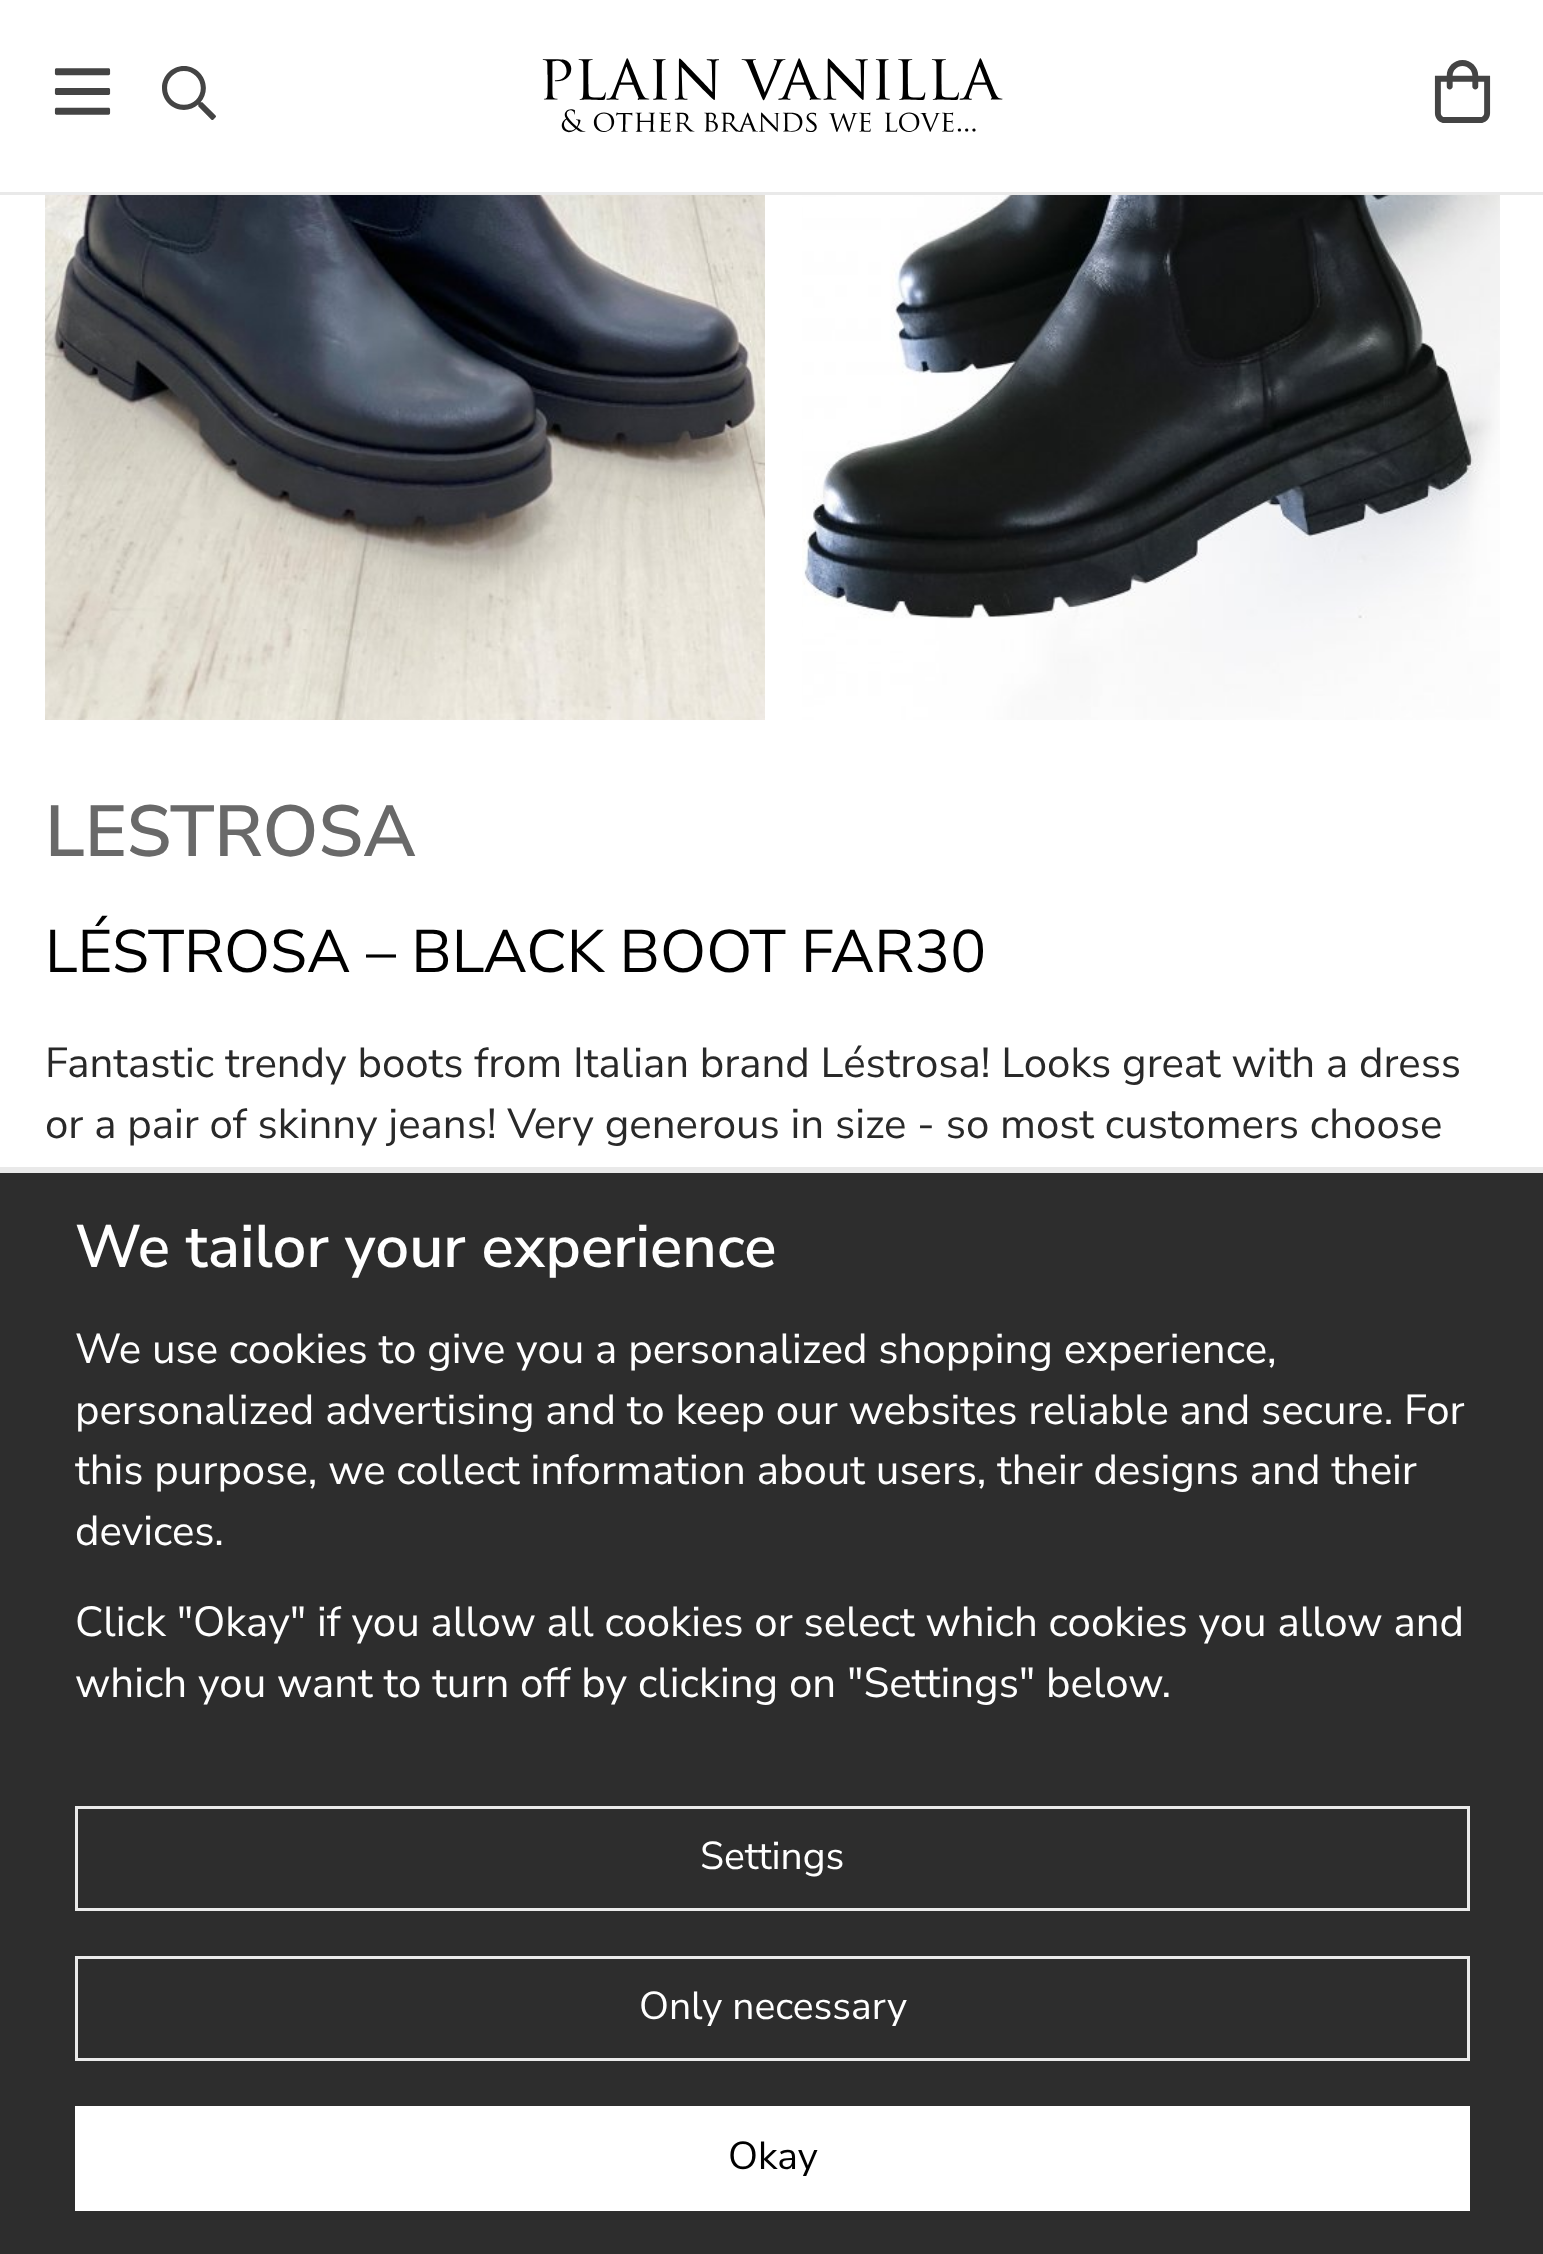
<!DOCTYPE html>
<meta charset="utf-8">
<style>body { margin: 0 } canvas { display: block }</style>
<canvas id="canvas" width="1543" height="2254"></canvas>
<img id="img1" src="images/1.png" hidden>
<img id="img2" src="images/2.png" hidden>
<img id="img3" src="images/3.png" hidden>
<img id="img4" src="images/4.png" hidden>
<img id="img5" src="images/5.png" hidden>
<img id="img6" src="images/6.png" hidden>
<script>
window.onload = function () {
    const canvas = document.getElementById('canvas');
    const context = canvas.getContext('2d');
    context.miterLimit = 4;
    context.fontKerning = 'normal';

    context.fillStyle = 'rgb(255, 255, 255)';
    context.fillRect(0, 0, 1543, 2254);
    context.fillStyle = 'rgb(233, 233, 233)';
    context.fillRect(0, 192, 1543, 3);
    context.drawImage(document.getElementById('img1'), 54, 68, 57, 47);
    context.drawImage(document.getElementById('img2'), 162, 66, 54, 54);
    context.drawImage(document.getElementById('img3'), 542, 58, 461, 75);
    context.drawImage(document.getElementById('img4'), 1434, 60, 57, 63);
    context.drawImage(document.getElementById('img5'), 45, 195, 720, 525);
    context.drawImage(document.getElementById('img6'), 802, 195, 698, 525);
    context.fillStyle = 'rgb(45, 45, 45)';
    context.fillRect(0, 1173, 1543, 1081);
    context.fillStyle = 'rgb(233, 233, 233)';
    context.fillRect(0, 1167, 1543, 6);
    context.strokeStyle = 'rgb(234, 234, 234)';
    context.lineWidth = 3;
    context.strokeRect(76.5, 1807.5, 1392, 102);
    context.strokeRect(76.5, 1957.5, 1392, 102);
    context.fillStyle = 'rgb(255, 255, 255)';
    context.fillRect(75, 2106, 1395, 105);
    context.font = '600 72px Nunito Sans';
    context.fillStyle = 'rgb(105, 105, 105)';
    context.fillText('LESTROSA', 45, 856);
    context.font = '60px Nunito Sans';
    context.fillStyle = 'rgb(0, 0, 0)';
    context.fillText('LÉSTROSA – BLACK BOOT FAR30', 45, 972);
    context.font = '42px Nunito Sans';
    context.fillStyle = 'rgb(41, 41, 41)';
    context.fillText('Fantastic trendy boots from Italian brand Léstrosa! Looks great with a dress', 45, 1077);
    context.fillText('or a pair of skinny jeans! Very generous in size - so most customers choose', 45, 1138);
    context.font = '600 60px Nunito Sans';
    context.fillStyle = 'rgb(255, 255, 255)';
    context.fillText('We tailor your experience', 75, 1267);
    context.font = '42px Nunito Sans';
    context.fillText('We use cookies to give you a personalized shopping experience,', 75, 1363);
    context.fillText('personalized advertising and to keep our websites reliable and secure. For', 75, 1424);
    context.fillText('this purpose, we collect information about users, their designs and their', 75, 1484);
    context.fillText('devices.', 75, 1545);
    context.fillText('Click "Okay" if you allow all cookies or select which cookies you allow and', 75, 1636);
    context.fillText('which you want to turn off by clicking on "Settings" below.', 75, 1697);
    context.font = '39px Nunito Sans';
    context.fillText('Settings', 700, 1869);
    context.fillText('Only necessary', 639, 2019);
    context.fillStyle = 'rgb(0, 0, 0)';
    context.fillText('Okay', 728, 2169);
};
</script>
